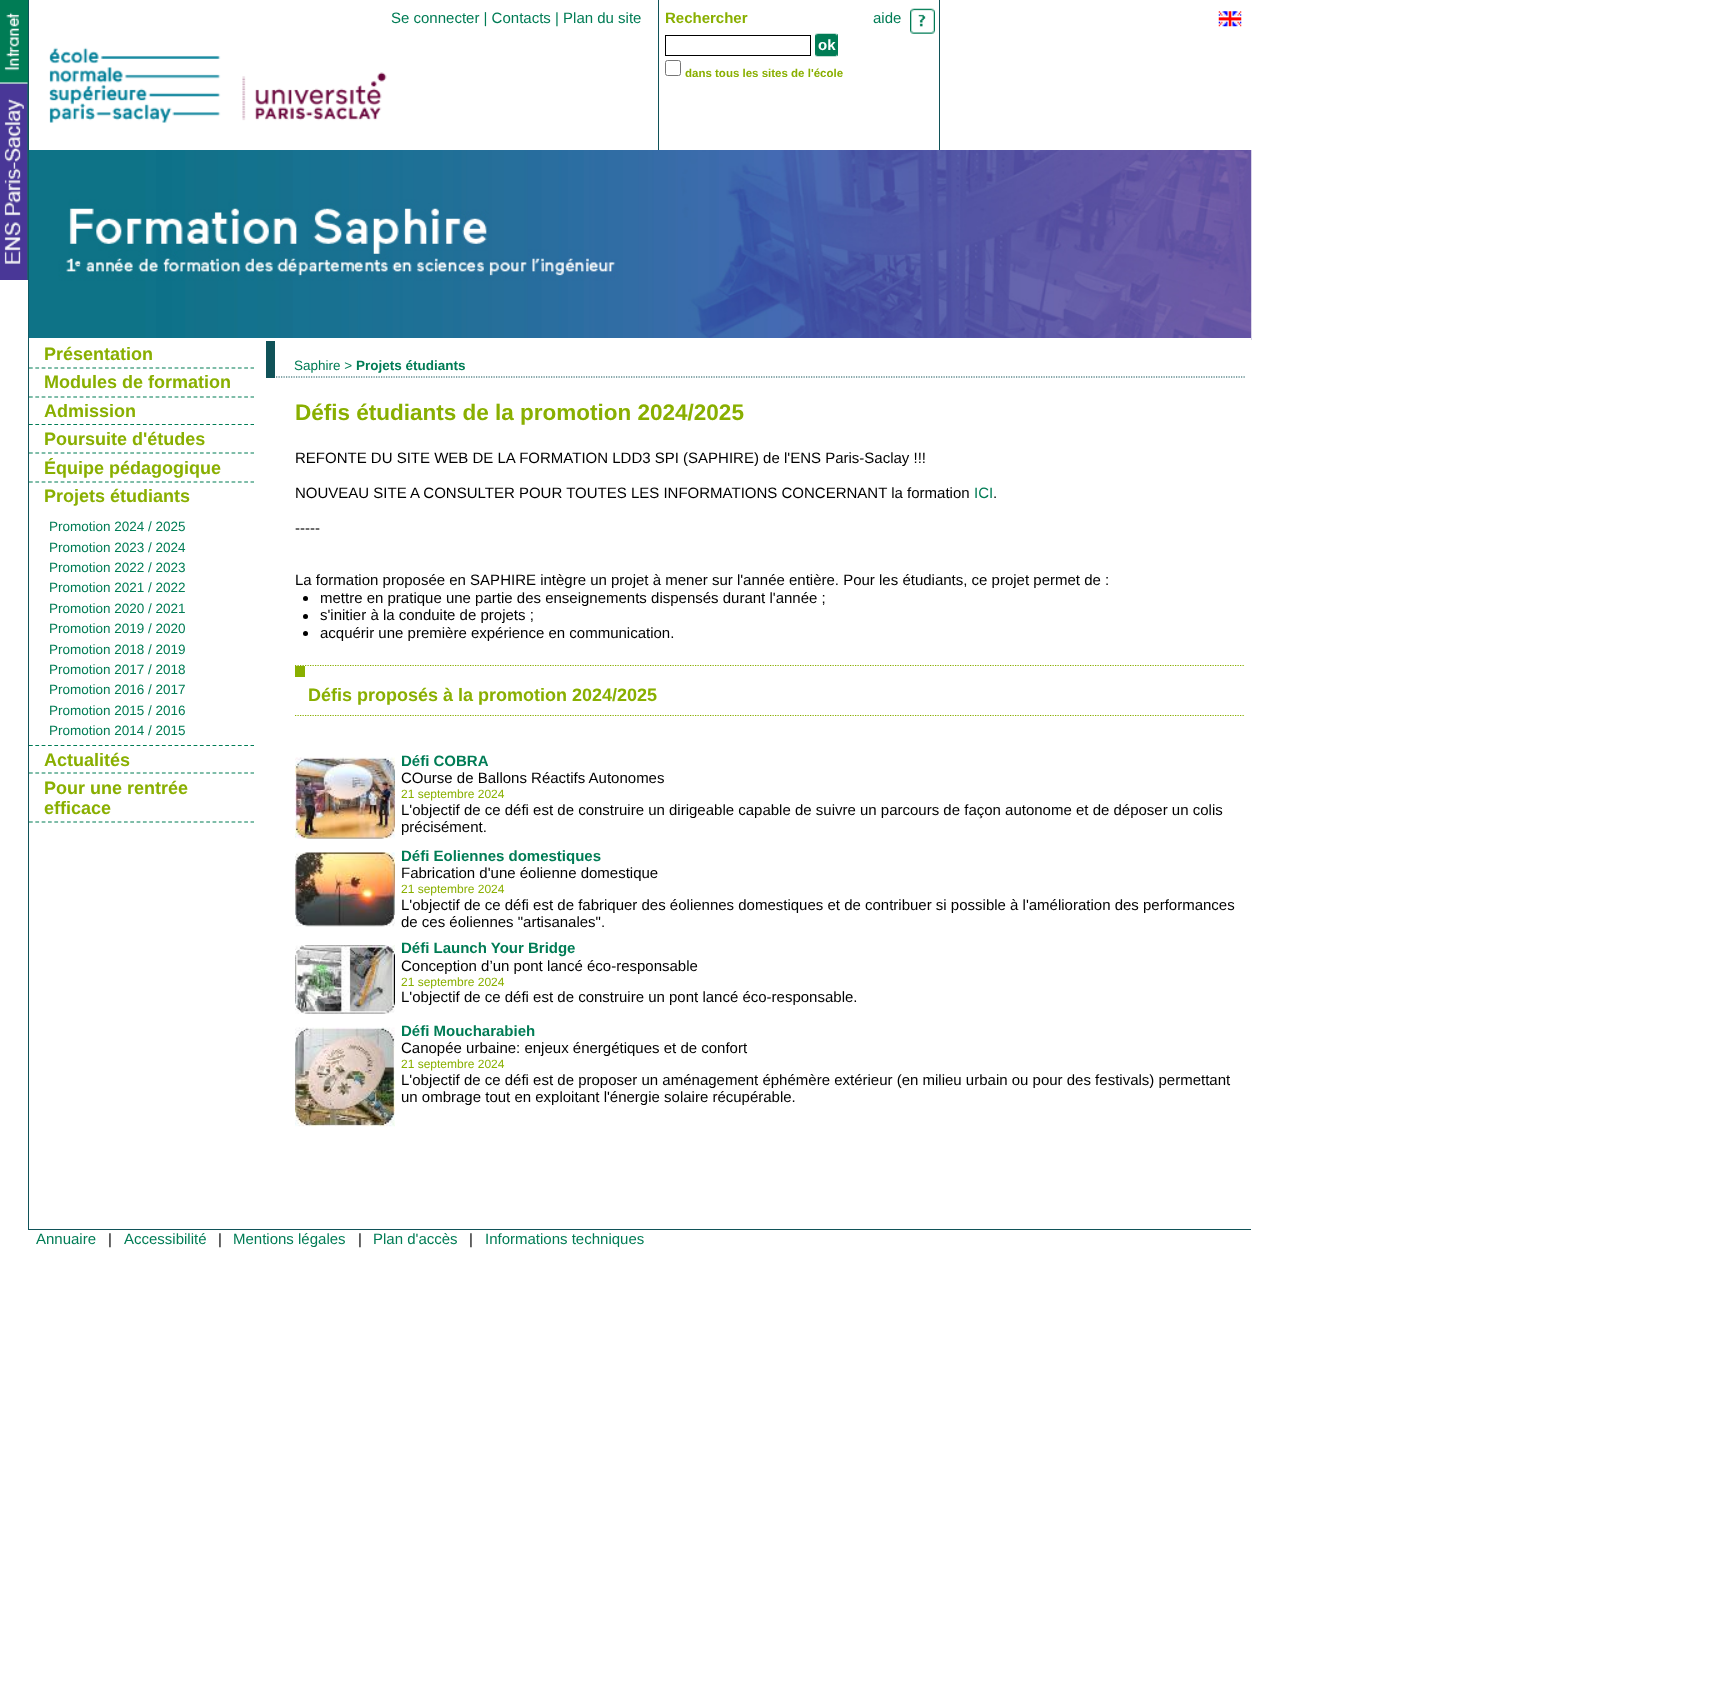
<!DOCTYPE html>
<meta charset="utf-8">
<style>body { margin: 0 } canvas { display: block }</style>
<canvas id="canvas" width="1728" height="1686"></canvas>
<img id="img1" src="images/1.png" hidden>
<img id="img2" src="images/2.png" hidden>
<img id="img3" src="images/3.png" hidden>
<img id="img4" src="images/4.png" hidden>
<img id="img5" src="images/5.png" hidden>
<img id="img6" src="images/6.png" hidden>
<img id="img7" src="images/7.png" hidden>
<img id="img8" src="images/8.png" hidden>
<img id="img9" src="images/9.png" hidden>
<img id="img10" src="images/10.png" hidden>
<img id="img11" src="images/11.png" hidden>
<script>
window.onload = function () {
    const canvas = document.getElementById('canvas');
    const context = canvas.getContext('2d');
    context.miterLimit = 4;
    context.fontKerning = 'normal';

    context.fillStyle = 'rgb(255, 255, 255)';
    context.fillRect(0, 0, 1728, 1686);
    context.fillStyle = 'rgb(0, 124, 85)';
    context.fillRect(0, 0, 28, 84);
    context.drawImage(document.getElementById('img1'), 0, 12, 28, 72);
    context.fillRect(27, 84, 1, 196);
    context.drawImage(document.getElementById('img2'), 0, 83, 28, 197);
    context.fillStyle = 'rgb(16, 82, 88)';
    context.fillRect(28, 1229, 1223, 1);
    context.fillRect(28, 0, 1, 1230);
    context.fillRect(939, 0, 1, 150);
    context.fillRect(658, 0, 1, 150);
    context.strokeStyle = 'rgb(0, 0, 0)';
    context.strokeRect(665.5, 35.5, 145, 20);
    context.fillStyle = 'rgb(0, 124, 85)';
    context.fillRect(837, 34, 1, 22);
    context.drawImage(document.getElementById('img3'), 815, 33, 23, 24);
    context.beginPath();
    context.roundRect(665.5, 60.5, 15, 15, 2);
    context.strokeStyle = 'rgb(118, 118, 118)';
    context.stroke();
    context.drawImage(document.getElementById('img4'), 910, 8, 25, 26);
    context.drawImage(document.getElementById('img5'), 1218, 11, 24, 16);
    context.drawImage(document.getElementById('img6'), 49, 47, 338, 76);
    context.drawImage(document.getElementById('img7'), 28, 150, 1224, 190);
    context.fillStyle = 'rgb(255, 255, 255)';
    context.fillRect(29, 338, 1222, 2);
    context.beginPath();
    context.moveTo(29, 368);
    context.lineTo(254, 368);
    context.strokeStyle = 'rgb(0, 124, 85)';
    context.lineWidth = 1.2;
    context.setLineDash([3.75, 2.58]);
    context.stroke();
    context.beginPath();
    context.moveTo(29, 397);
    context.lineTo(254, 397);
    context.stroke();
    context.beginPath();
    context.moveTo(29, 424.5);
    context.lineTo(254, 424.5);
    context.stroke();
    context.fillRect(29, 425, 225, 1);
    context.beginPath();
    context.moveTo(29, 453);
    context.lineTo(254, 453);
    context.stroke();
    context.beginPath();
    context.moveTo(29, 482);
    context.lineTo(254, 482);
    context.stroke();
    context.beginPath();
    context.moveTo(29, 745.5);
    context.lineTo(254, 745.5);
    context.stroke();
    context.fillRect(29, 746, 225, 1);
    context.beginPath();
    context.moveTo(29, 773);
    context.lineTo(254, 773);
    context.stroke();
    context.beginPath();
    context.moveTo(29, 822);
    context.lineTo(254, 822);
    context.stroke();
    context.beginPath();
    context.moveTo(266, 377);
    context.lineTo(1245, 377);
    context.strokeStyle = 'rgb(16, 82, 88)';
    context.setLineDash([1.25, 1.25]);
    context.stroke();
    context.fillStyle = 'rgb(16, 82, 88)';
    context.fillRect(266, 341, 9, 37);
    context.fillStyle = 'rgb(0, 0, 0)';
    context.beginPath();
    context.arc(305.5, 598.5, 2.5, 0, 2 * Math.PI);
    context.fill();
    context.beginPath();
    context.arc(305.5, 616.5, 2.5, 0, 2 * Math.PI);
    context.fill();
    context.beginPath();
    context.arc(305.5, 633.5, 2.5, 0, 2 * Math.PI);
    context.fill();
    context.fillStyle = 'rgb(137, 175, 0)';
    context.fillRect(295, 666, 10, 11);
    context.beginPath();
    context.moveTo(295, 665.5);
    context.lineTo(1244, 665.5);
    context.strokeStyle = 'rgb(137, 175, 0)';
    context.stroke();
    context.beginPath();
    context.moveTo(295, 715.5);
    context.lineTo(1244, 715.5);
    context.stroke();
    context.drawImage(document.getElementById('img8'), 295, 757, 100, 82);
    context.drawImage(document.getElementById('img9'), 295, 852, 100, 75);
    context.drawImage(document.getElementById('img10'), 295, 945, 100, 69);
    context.drawImage(document.getElementById('img11'), 295, 1027, 100, 100);
    context.font = '15px Liberation Sans';
    context.fillStyle = 'rgb(0, 124, 85)';
    context.fillText('Se connecter | Contacts | Plan du site', 391, 23);
    context.font = 'bold 15px Liberation Sans';
    context.fillStyle = 'rgb(137, 175, 0)';
    context.fillText('Rechercher', 665, 23);
    context.fillStyle = 'rgb(255, 255, 255)';
    context.fillText('ok', 818, 50);
    context.font = 'bold 11.5px Liberation Sans';
    context.fillStyle = 'rgb(137, 175, 0)';
    context.fillText('dans tous les sites de l\'école', 685, 77);
    context.font = '15px Liberation Sans';
    context.fillStyle = 'rgb(0, 124, 85)';
    context.fillText('aide', 873, 23);
    context.font = 'bold 18px Liberation Sans';
    context.fillStyle = 'rgb(137, 175, 0)';
    context.fillText('Présentation', 44, 360);
    context.fillText('Modules de formation', 44, 388);
    context.fillText('Admission', 44, 417);
    context.fillText('Poursuite d\'études', 44, 445);
    context.fillText('Équipe pédagogique', 44, 474);
    context.fillText('Projets étudiants', 44, 502);
    context.font = '13.5px Liberation Sans';
    context.fillStyle = 'rgb(0, 124, 85)';
    context.fillText('Promotion 2024 / 2025', 49, 531);
    context.fillText('Promotion 2023 / 2024', 49, 552);
    context.fillText('Promotion 2022 / 2023', 49, 572);
    context.fillText('Promotion 2021 / 2022', 49, 592);
    context.fillText('Promotion 2020 / 2021', 49, 613);
    context.fillText('Promotion 2019 / 2020', 49, 633);
    context.fillText('Promotion 2018 / 2019', 49, 654);
    context.fillText('Promotion 2017 / 2018', 49, 674);
    context.fillText('Promotion 2016 / 2017', 49, 694);
    context.fillText('Promotion 2015 / 2016', 49, 715);
    context.fillText('Promotion 2014 / 2015', 49, 735);
    context.font = 'bold 18px Liberation Sans';
    context.fillStyle = 'rgb(137, 175, 0)';
    context.fillText('Actualités', 44, 766);
    context.fillText('Pour une rentrée', 44, 794);
    context.fillText('efficace', 44, 814);
    context.font = '13.5px Liberation Sans';
    context.fillStyle = 'rgb(0, 124, 85)';
    context.fillText('Saphire >', 294, 370);
    context.font = 'bold 13.5px Liberation Sans';
    context.fillText('Projets étudiants', 356, 370);
    context.font = 'bold 22.5px Liberation Sans';
    context.fillStyle = 'rgb(137, 175, 0)';
    context.fillText('Défis étudiants de la promotion 2024/2025', 295, 420);
    context.font = '15px Liberation Sans';
    context.fillStyle = 'rgb(0, 0, 0)';
    context.fillText('REFONTE DU SITE WEB DE LA FORMATION LDD3 SPI (SAPHIRE) de l\'ENS Paris-Saclay !!!', 295, 463);
    context.fillText('NOUVEAU SITE A CONSULTER POUR TOUTES LES INFORMATIONS CONCERNANT la formation', 295, 498);
    context.fillStyle = 'rgb(0, 124, 85)';
    context.fillText('ICI', 974, 498);
    context.fillStyle = 'rgb(0, 0, 0)';
    context.fillText('.', 993, 498);
    context.fillText('-----', 295, 533);
    context.fillText('La formation proposée en SAPHIRE intègre un projet à mener sur l\'année entière. Pour les étudiants, ce projet permet de :', 295, 585);
    context.fillText('mettre en pratique une partie des enseignements dispensés durant l\'année ;', 320, 603);
    context.fillText('s\'initier à la conduite de projets ;', 320, 620);
    context.fillText('acquérir une première expérience en communication.', 320, 638);
    context.font = 'bold 18px Liberation Sans';
    context.fillStyle = 'rgb(137, 175, 0)';
    context.fillText('Défis proposés à la promotion 2024/2025', 308, 701);
    context.font = 'bold 15px Liberation Sans';
    context.fillStyle = 'rgb(0, 124, 85)';
    context.fillText('Défi COBRA', 401, 766);
    context.font = '15px Liberation Sans';
    context.fillStyle = 'rgb(0, 0, 0)';
    context.fillText('COurse de Ballons Réactifs Autonomes', 401, 783);
    context.font = '12px Liberation Sans';
    context.fillStyle = 'rgb(137, 175, 0)';
    context.fillText('21 septembre 2024', 401, 798);
    context.font = '15px Liberation Sans';
    context.fillStyle = 'rgb(0, 0, 0)';
    context.fillText('L\'objectif de ce défi est de construire un dirigeable capable de suivre un parcours de façon autonome et de déposer un colis', 401, 815);
    context.fillText('précisément.', 401, 832);
    context.font = 'bold 15px Liberation Sans';
    context.fillStyle = 'rgb(0, 124, 85)';
    context.fillText('Défi Eoliennes domestiques', 401, 861);
    context.font = '15px Liberation Sans';
    context.fillStyle = 'rgb(0, 0, 0)';
    context.fillText('Fabrication d\'une éolienne domestique', 401, 878);
    context.font = '12px Liberation Sans';
    context.fillStyle = 'rgb(137, 175, 0)';
    context.fillText('21 septembre 2024', 401, 893);
    context.font = '15px Liberation Sans';
    context.fillStyle = 'rgb(0, 0, 0)';
    context.fillText('L\'objectif de ce défi est de fabriquer des éoliennes domestiques et de contribuer si possible à l\'amélioration des performances', 401, 910);
    context.fillText('de ces éoliennes "artisanales".', 401, 927);
    context.font = 'bold 15px Liberation Sans';
    context.fillStyle = 'rgb(0, 124, 85)';
    context.fillText('Défi Launch Your Bridge', 401, 953);
    context.font = '15px Liberation Sans';
    context.fillStyle = 'rgb(0, 0, 0)';
    context.fillText('Conception d’un pont lancé éco-responsable', 401, 971);
    context.font = '12px Liberation Sans';
    context.fillStyle = 'rgb(137, 175, 0)';
    context.fillText('21 septembre 2024', 401, 986);
    context.font = '15px Liberation Sans';
    context.fillStyle = 'rgb(0, 0, 0)';
    context.fillText('L\'objectif de ce défi est de construire un pont lancé éco-responsable.', 401, 1002);
    context.font = 'bold 15px Liberation Sans';
    context.fillStyle = 'rgb(0, 124, 85)';
    context.fillText('Défi Moucharabieh', 401, 1036);
    context.font = '15px Liberation Sans';
    context.fillStyle = 'rgb(0, 0, 0)';
    context.fillText('Canopée urbaine: enjeux énergétiques et de confort', 401, 1053);
    context.font = '12px Liberation Sans';
    context.fillStyle = 'rgb(137, 175, 0)';
    context.fillText('21 septembre 2024', 401, 1068);
    context.font = '15px Liberation Sans';
    context.fillStyle = 'rgb(0, 0, 0)';
    context.fillText('L\'objectif de ce défi est de proposer un aménagement éphémère extérieur (en milieu urbain ou pour des festivals) permettant', 401, 1085);
    context.fillText('un ombrage tout en exploitant l\'énergie solaire récupérable.', 401, 1102);
    context.fillStyle = 'rgb(0, 124, 85)';
    context.fillText('Annuaire', 36, 1244);
    context.fillStyle = 'rgb(0, 0, 0)';
    context.fillText('|', 108, 1244);
    context.fillStyle = 'rgb(0, 124, 85)';
    context.fillText('Accessibilité', 124, 1244);
    context.fillStyle = 'rgb(0, 0, 0)';
    context.fillText('|', 218, 1244);
    context.fillStyle = 'rgb(0, 124, 85)';
    context.fillText('Mentions légales', 233, 1244);
    context.fillStyle = 'rgb(0, 0, 0)';
    context.fillText('|', 358, 1244);
    context.fillStyle = 'rgb(0, 124, 85)';
    context.fillText('Plan d\'accès', 373, 1244);
    context.fillStyle = 'rgb(0, 0, 0)';
    context.fillText('|', 469, 1244);
    context.fillStyle = 'rgb(0, 124, 85)';
    context.fillText('Informations techniques', 485, 1244);
};
</script>
